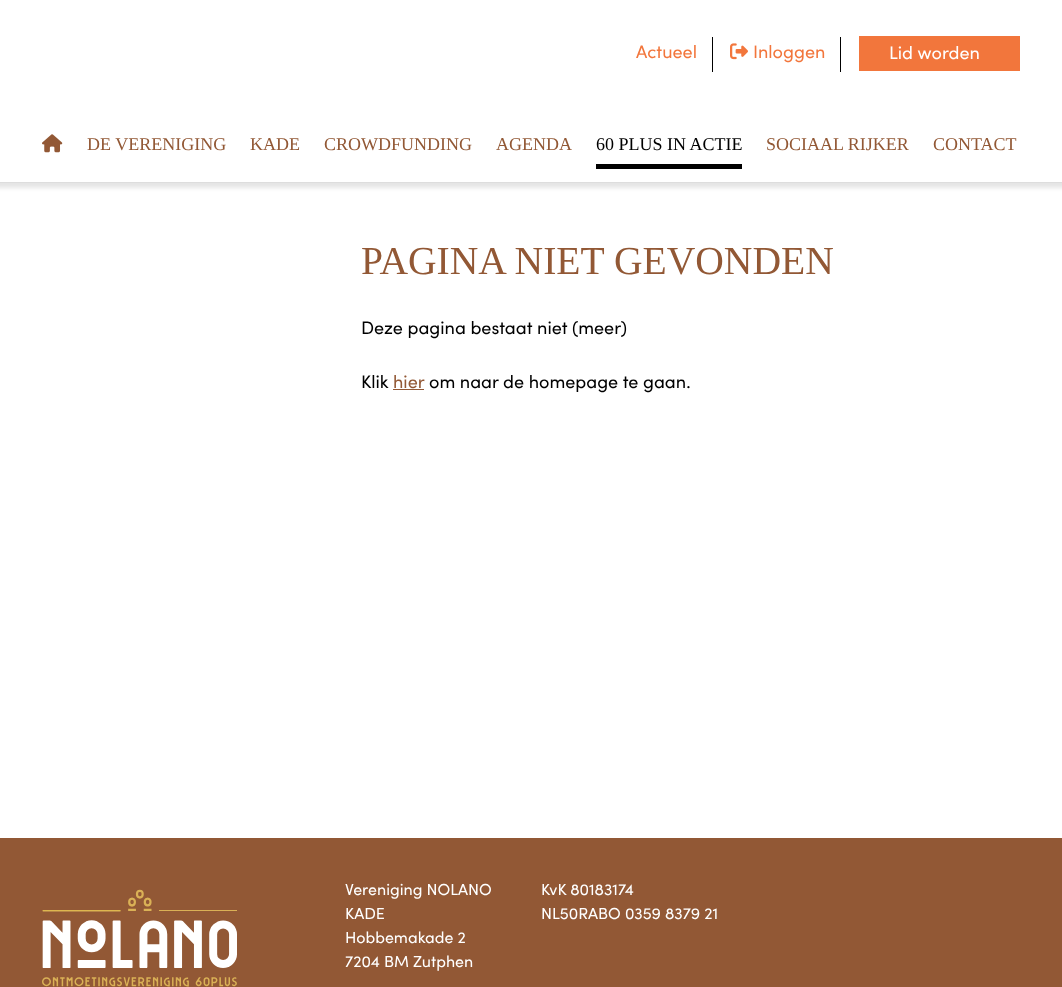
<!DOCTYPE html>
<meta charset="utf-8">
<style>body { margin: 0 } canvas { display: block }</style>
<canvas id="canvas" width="1062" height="987"></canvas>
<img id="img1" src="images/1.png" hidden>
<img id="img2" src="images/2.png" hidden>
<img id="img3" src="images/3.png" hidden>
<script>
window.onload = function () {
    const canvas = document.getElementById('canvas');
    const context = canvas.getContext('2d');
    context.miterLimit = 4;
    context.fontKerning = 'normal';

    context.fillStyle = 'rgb(247, 247, 247)';
    context.fillRect(0, 0, 1062, 987);
    context.fillStyle = 'rgb(255, 255, 255)';
    context.fillRect(0, 183, 1062, 655);
    context.fillStyle = 'rgba(0, 0, 0, 0.1)';
    context.filter = 'blur(2px)';
    context.beginPath();
    context.rect(-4, -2, 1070, 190);
    context.fill();
    context.filter = 'none';
    context.fillStyle = 'rgb(255, 255, 255)';
    context.fillRect(0, 0, 1062, 182);
    context.fillStyle = 'rgb(0, 0, 0)';
    context.fillRect(712, 37, 1, 35);
    context.fillRect(840, 37, 1, 35);
    context.drawImage(document.getElementById('img1'), 730, 43, 18, 17);
    context.fillStyle = 'rgb(242, 118, 60)';
    context.fillRect(859, 36, 161, 35);
    context.drawImage(document.getElementById('img2'), 42, 134, 21, 19);
    context.fillStyle = 'rgb(0, 0, 0)';
    context.fillRect(596, 164, 146, 5);
    context.fillStyle = 'rgb(146, 88, 53)';
    context.fillRect(393, 389, 31, 1);
    context.fillRect(0, 838, 1062, 149);
    context.drawImage(document.getElementById('img3'), 42, 889, 195, 98);
    context.font = '18px Sofia';
    context.fillStyle = 'rgb(242, 118, 60)';
    context.fillText('Actueel', 636, 58);
    context.fillText('Inloggen', 753, 58);
    context.fillStyle = 'rgb(255, 255, 255)';
    context.fillText('Lid worden', 889, 59);
    context.font = '18px Liberation Serif';
    context.fillStyle = 'rgb(146, 88, 53)';
    context.fillText('DE VERENIGING', 87, 150);
    context.fillText('KADE', 250, 150);
    context.fillText('CROWDFUNDING', 324, 150);
    context.fillText('AGENDA', 496, 150);
    context.fillStyle = 'rgb(0, 0, 0)';
    context.fillText('60 PLUS IN ACTIE', 596, 150);
    context.fillStyle = 'rgb(146, 88, 53)';
    context.fillText('SOCIAAL RIJKER', 766, 150);
    context.fillText('CONTACT', 933, 150);
    context.font = '39.6px Liberation Serif';
    context.fillText('PAGINA NIET GEVONDEN', 361, 274);
    context.font = '18px Sofia';
    context.fillStyle = 'rgb(0, 0, 0)';
    context.fillText('Deze pagina bestaat niet (meer)', 361, 334);
    context.fillText('Klik', 361, 388);
    context.fillStyle = 'rgb(146, 88, 53)';
    context.fillText('hier', 393, 388);
    context.fillStyle = 'rgb(0, 0, 0)';
    context.fillText('om naar de homepage te gaan.', 429, 388);
    context.font = '16px Sofia';
    context.fillStyle = 'rgb(255, 255, 255)';
    context.fillText('Vereniging NOLANO', 345, 895);
    context.fillText('KADE', 345, 919);
    context.fillText('Hobbemakade 2', 345, 943);
    context.fillText('7204 BM Zutphen', 345, 967);
    context.fillText('KvK 80183174', 541, 895);
    context.fillText('NL50RABO 0359 8379 21', 541, 919);
};
</script>
